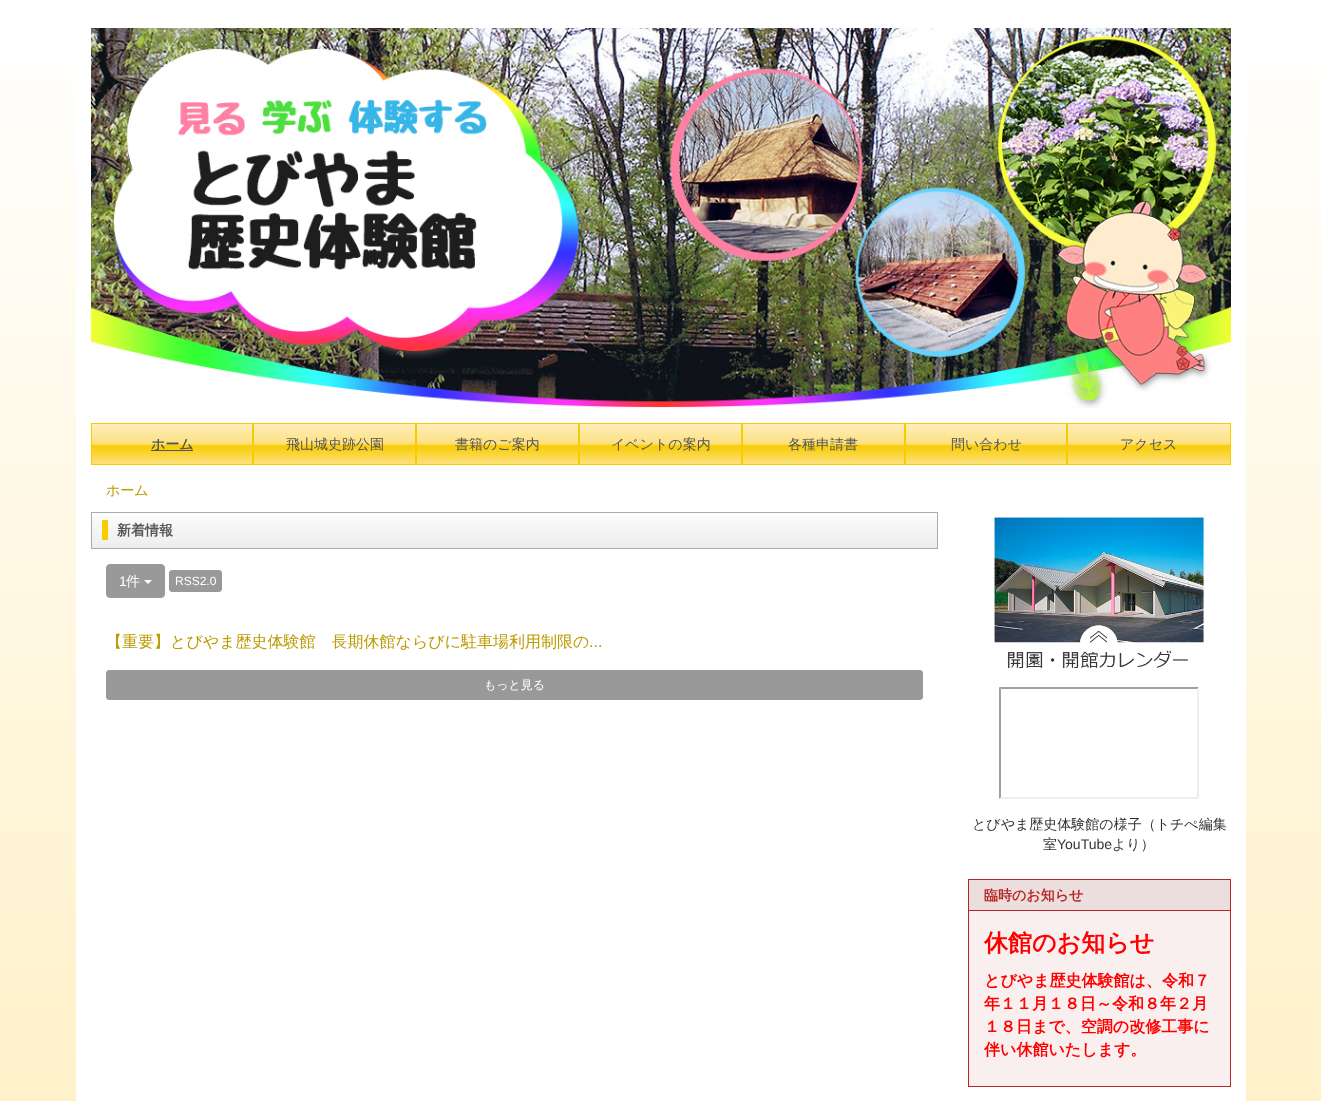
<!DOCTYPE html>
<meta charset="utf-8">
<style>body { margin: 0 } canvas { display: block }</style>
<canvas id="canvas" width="1321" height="1101"></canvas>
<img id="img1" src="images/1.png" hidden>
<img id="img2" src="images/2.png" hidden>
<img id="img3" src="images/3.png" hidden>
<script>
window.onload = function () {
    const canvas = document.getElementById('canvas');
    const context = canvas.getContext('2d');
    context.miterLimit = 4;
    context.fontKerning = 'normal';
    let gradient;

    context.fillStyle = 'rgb(255, 255, 255)';
    context.fillRect(0, 0, 1321, 1101);
    gradient = context.createLinearGradient(661, 1101, 661, 0);
    gradient.addColorStop(0, 'rgb(255, 241, 201)');
    gradient.addColorStop(1, 'rgb(255, 255, 255)');
    context.fillStyle = gradient;
    context.fillRect(0, 51, 1321, 1050);
    context.fillStyle = 'rgb(255, 255, 255)';
    context.fillRect(76, 51, 1170, 1050);
    context.drawImage(document.getElementById('img1'), 91, 28, 1140, 380);
    gradient = context.createLinearGradient(172, 424, 172, 464);
    gradient.addColorStop(0, 'rgb(255, 238, 188)');
    gradient.addColorStop(0.49, 'rgb(252, 225, 128)');
    gradient.addColorStop(0.55, 'rgb(249, 204, 0)');
    gradient.addColorStop(1, 'rgb(252, 225, 128)');
    context.fillStyle = gradient;
    context.fillRect(92, 424, 160, 40);
    context.strokeStyle = 'rgb(249, 204, 0)';
    context.strokeRect(91.5, 423.5, 161, 41);
    context.fillStyle = 'rgb(85, 85, 85)';
    context.fillRect(151, 450, 42, 1);
    gradient = context.createLinearGradient(335, 424, 335, 464);
    gradient.addColorStop(0, 'rgb(255, 238, 188)');
    gradient.addColorStop(0.49, 'rgb(252, 225, 128)');
    gradient.addColorStop(0.55, 'rgb(249, 204, 0)');
    gradient.addColorStop(1, 'rgb(252, 225, 128)');
    context.fillStyle = gradient;
    context.fillRect(254, 424, 161, 40);
    context.strokeRect(253.5, 423.5, 162, 41);
    gradient = context.createLinearGradient(498, 424, 498, 464);
    gradient.addColorStop(0, 'rgb(255, 238, 188)');
    gradient.addColorStop(0.49, 'rgb(252, 225, 128)');
    gradient.addColorStop(0.55, 'rgb(249, 204, 0)');
    gradient.addColorStop(1, 'rgb(252, 225, 128)');
    context.fillStyle = gradient;
    context.fillRect(417, 424, 161, 40);
    context.strokeRect(416.5, 423.5, 162, 41);
    gradient = context.createLinearGradient(661, 424, 661, 464);
    gradient.addColorStop(0, 'rgb(255, 238, 188)');
    gradient.addColorStop(0.49, 'rgb(252, 225, 128)');
    gradient.addColorStop(0.55, 'rgb(249, 204, 0)');
    gradient.addColorStop(1, 'rgb(252, 225, 128)');
    context.fillStyle = gradient;
    context.fillRect(580, 424, 161, 40);
    context.strokeRect(579.5, 423.5, 162, 41);
    gradient = context.createLinearGradient(824, 424, 824, 464);
    gradient.addColorStop(0, 'rgb(255, 238, 188)');
    gradient.addColorStop(0.49, 'rgb(252, 225, 128)');
    gradient.addColorStop(0.55, 'rgb(249, 204, 0)');
    gradient.addColorStop(1, 'rgb(252, 225, 128)');
    context.fillStyle = gradient;
    context.fillRect(743, 424, 161, 40);
    context.strokeRect(742.5, 423.5, 162, 41);
    gradient = context.createLinearGradient(986, 424, 986, 464);
    gradient.addColorStop(0, 'rgb(255, 238, 188)');
    gradient.addColorStop(0.49, 'rgb(252, 225, 128)');
    gradient.addColorStop(0.55, 'rgb(249, 204, 0)');
    gradient.addColorStop(1, 'rgb(252, 225, 128)');
    context.fillStyle = gradient;
    context.fillRect(906, 424, 160, 40);
    context.strokeRect(905.5, 423.5, 161, 41);
    gradient = context.createLinearGradient(1149, 424, 1149, 464);
    gradient.addColorStop(0, 'rgb(255, 238, 188)');
    gradient.addColorStop(0.49, 'rgb(252, 225, 128)');
    gradient.addColorStop(0.55, 'rgb(249, 204, 0)');
    gradient.addColorStop(1, 'rgb(252, 225, 128)');
    context.fillStyle = gradient;
    context.fillRect(1068, 424, 162, 40);
    context.strokeRect(1067.5, 423.5, 163, 41);
    context.drawImage(document.getElementById('img2'), 92, 516, 845, 32);
    context.strokeStyle = 'rgb(170, 170, 170)';
    context.strokeRect(91.5, 512.5, 846, 36);
    context.fillStyle = 'rgb(153, 153, 153)';
    context.beginPath();
    context.roundRect(106.5, 564.5, 58, 33, 3.5);
    context.fill();
    context.strokeStyle = 'rgb(153, 153, 153)';
    context.stroke();
    context.fillStyle = 'rgb(255, 255, 255)';
    context.beginPath();
    context.moveTo(144, 580);
    context.lineTo(152, 580);
    context.lineTo(148, 584);
    context.closePath();
    context.fill();
    context.fillStyle = 'rgb(153, 153, 153)';
    context.beginPath();
    context.roundRect(169.5, 570.5, 52, 21, 2.5);
    context.fill();
    context.stroke();
    context.beginPath();
    context.roundRect(106.5, 670.5, 816, 29, 2.5);
    context.fill();
    context.stroke();
    context.drawImage(document.getElementById('img3'), 994, 517, 210, 151);
    context.fillStyle = 'rgb(159, 159, 159)';
    context.beginPath();
    context.moveTo(999, 687);
    context.lineTo(1199, 687);
    context.lineTo(1197, 689);
    context.lineTo(1001, 689);
    context.closePath();
    context.fill();
    context.fillStyle = 'rgb(238, 238, 238)';
    context.beginPath();
    context.moveTo(1199, 687);
    context.lineTo(1199, 799);
    context.lineTo(1197, 797);
    context.lineTo(1197, 689);
    context.closePath();
    context.fill();
    context.beginPath();
    context.moveTo(1199, 799);
    context.lineTo(999, 799);
    context.lineTo(1001, 797);
    context.lineTo(1197, 797);
    context.closePath();
    context.fill();
    context.fillStyle = 'rgb(159, 159, 159)';
    context.beginPath();
    context.moveTo(999, 799);
    context.lineTo(999, 687);
    context.lineTo(1001, 689);
    context.lineTo(1001, 797);
    context.closePath();
    context.fill();
    context.fillStyle = 'rgb(249, 239, 239)';
    context.fillRect(969, 911, 261, 175);
    context.strokeStyle = 'rgb(183, 38, 38)';
    context.strokeRect(968.5, 879.5, 262, 207);
    context.fillStyle = 'rgb(237, 222, 222)';
    context.fillRect(969, 880, 261, 30);
    context.fillStyle = 'rgb(183, 38, 38)';
    context.fillRect(969, 910, 261, 1);
    context.font = 'bold 14px WenQuanYi Zen Hei';
    context.fillStyle = 'rgb(85, 85, 85)';
    context.fillText('ホーム', 151, 449);
    context.font = '500 14px WenQuanYi Zen Hei';
    context.fillText('飛山城史跡公園', 286, 449);
    context.fillText('書籍のご案内', 455, 449);
    context.fillText('イベントの案内', 611, 449);
    context.fillText('各種申請書', 788, 449);
    context.fillText('問い合わせ', 951, 449);
    context.fillText('アクセス', 1120, 449);
    context.fillStyle = 'rgb(188, 154, 0)';
    context.fillText('ホーム', 106, 495);
    context.font = 'bold 14px WenQuanYi Zen Hei';
    context.fillStyle = 'rgb(85, 85, 85)';
    context.fillText('新着情報', 117, 535);
    context.font = '14px Liberation Sans';
    context.fillStyle = 'rgb(255, 255, 255)';
    context.fillText('1', 119, 586);
    context.font = '500 14px WenQuanYi Zen Hei';
    context.fillText('件', 126, 586);
    context.font = '12px Liberation Sans';
    context.fillText('RSS2.0', 175, 585);
    context.font = '500 16px WenQuanYi Zen Hei';
    context.fillStyle = 'rgb(188, 154, 0)';
    context.fillText('【重要】とびやま歴史体験館　長期休館ならびに駐車場利用制限の', 106, 647);
    context.font = '16px Liberation Sans';
    context.fillText('...', 589, 647);
    context.font = '500 12px WenQuanYi Zen Hei';
    context.fillStyle = 'rgb(255, 255, 255)';
    context.fillText('もっと見る', 484, 689);
    context.font = '500 14px WenQuanYi Zen Hei';
    context.fillStyle = 'rgb(51, 51, 51)';
    context.fillText('とびやま歴史体験館の様子（トチぺ編集', 972, 829);
    context.fillText('室', 1043, 849);
    context.font = '14px Liberation Sans';
    context.fillText('YouTube', 1057, 849);
    context.font = '500 14px WenQuanYi Zen Hei';
    context.fillText('より）', 1112, 849);
    context.font = 'bold 14px WenQuanYi Zen Hei';
    context.fillStyle = 'rgb(183, 38, 38)';
    context.fillText('臨時のお知らせ', 984, 900);
    context.font = 'bold 24px WenQuanYi Zen Hei';
    context.fillStyle = 'rgb(255, 0, 0)';
    context.fillText('休館のお知らせ', 984, 951);
    context.font = 'bold 16px WenQuanYi Zen Hei';
    context.fillText('とびやま歴史体験館は、令和７', 984, 986);
    context.fillText('年１１月１８日～令和８年２月', 984, 1009);
    context.fillText('１８日まで、空調の改修工事に', 984, 1032);
    context.fillText('伴い休館いたします。', 984, 1055);
};
</script>
